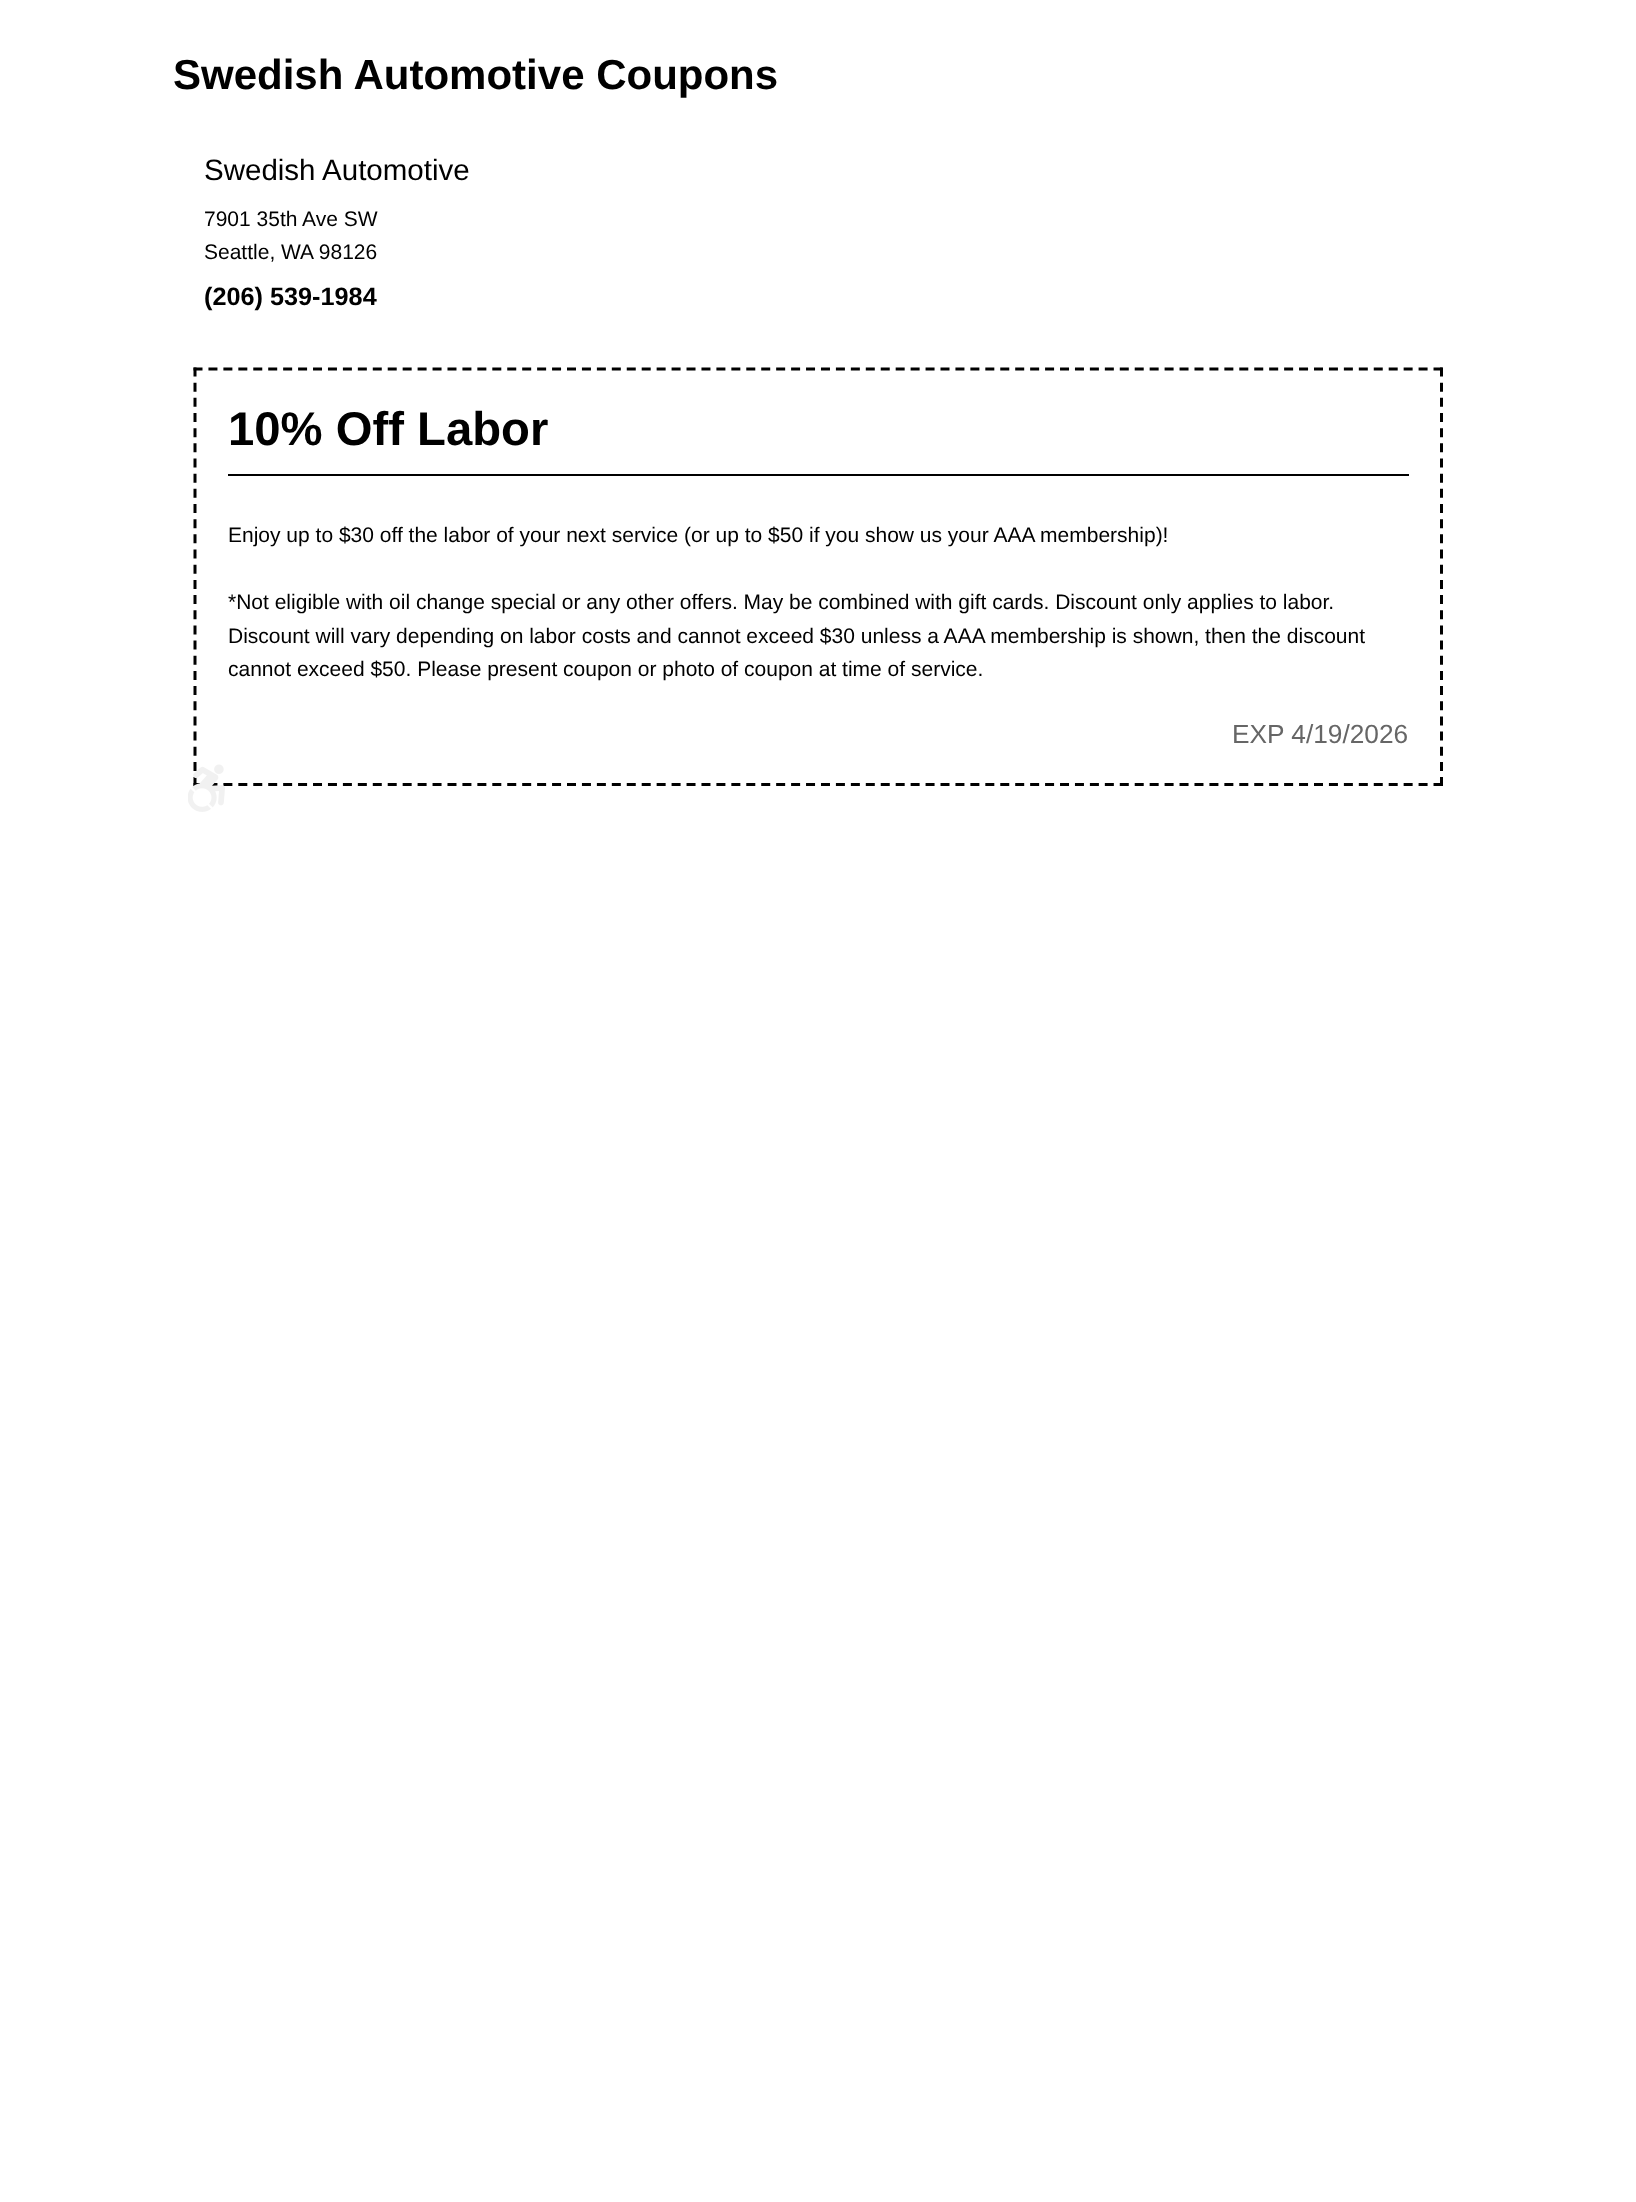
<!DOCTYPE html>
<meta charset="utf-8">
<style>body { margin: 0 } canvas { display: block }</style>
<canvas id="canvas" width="1636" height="2202"></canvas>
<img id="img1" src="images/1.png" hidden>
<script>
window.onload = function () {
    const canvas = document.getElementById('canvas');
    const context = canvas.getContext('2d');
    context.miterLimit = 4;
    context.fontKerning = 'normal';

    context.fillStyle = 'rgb(255, 255, 255)';
    context.fillRect(0, 0, 1636, 2202);
    context.beginPath();
    context.moveTo(193.5, 369);
    context.lineTo(1443, 369);
    context.strokeStyle = 'rgb(0, 0, 0)';
    context.lineWidth = 3;
    context.setLineDash([9, 5.94]);
    context.stroke();
    context.beginPath();
    context.moveTo(1441.5, 367.5);
    context.lineTo(1441.5, 786);
    context.setLineDash([9, 6.17]);
    context.stroke();
    context.beginPath();
    context.moveTo(193.5, 784.5);
    context.lineTo(1443, 784.5);
    context.setLineDash([9, 5.94]);
    context.stroke();
    context.beginPath();
    context.moveTo(195, 367.5);
    context.lineTo(195, 786);
    context.setLineDash([9, 6.17]);
    context.stroke();
    context.fillStyle = 'rgb(0, 0, 0)';
    context.fillRect(228, 474, 1181, 2);
    context.drawImage(document.getElementById('img1'), 188, 764, 37, 48);
    context.font = 'bold 42px Liberation Sans';
    context.fillText('Swedish Automotive Coupons', 173, 89);
    context.font = '29.5px Liberation Sans';
    context.fillText('Swedish Automotive', 204, 180);
    context.font = '21px Liberation Sans';
    context.fillText('7901 35th Ave SW', 204, 226);
    context.fillText('Seattle, WA 98126', 204, 259);
    context.font = 'bold 25.25px Liberation Sans';
    context.fillText('(206) 539-1984', 204, 305);
    context.font = 'bold 47.25px Liberation Sans';
    context.fillText('10% Off Labor', 228, 445);
    context.font = '21px Liberation Sans';
    context.fillText('Enjoy up to $30 off the labor of your next service (or up to $50 if you show us your AAA membership)!', 228, 542);
    context.fillText('*Not eligible with oil change special or any other offers. May be combined with gift cards. Discount only applies to labor.', 228, 609);
    context.fillText('Discount will vary depending on labor costs and cannot exceed $30 unless a AAA membership is shown, then the discount', 228, 643);
    context.fillText('cannot exceed $50. Please present coupon or photo of coupon at time of service.', 228, 676);
    context.font = '26.25px Liberation Sans';
    context.fillStyle = 'rgb(102, 102, 102)';
    context.fillText('EXP 4/19/2026', 1232, 743);
};
</script>
